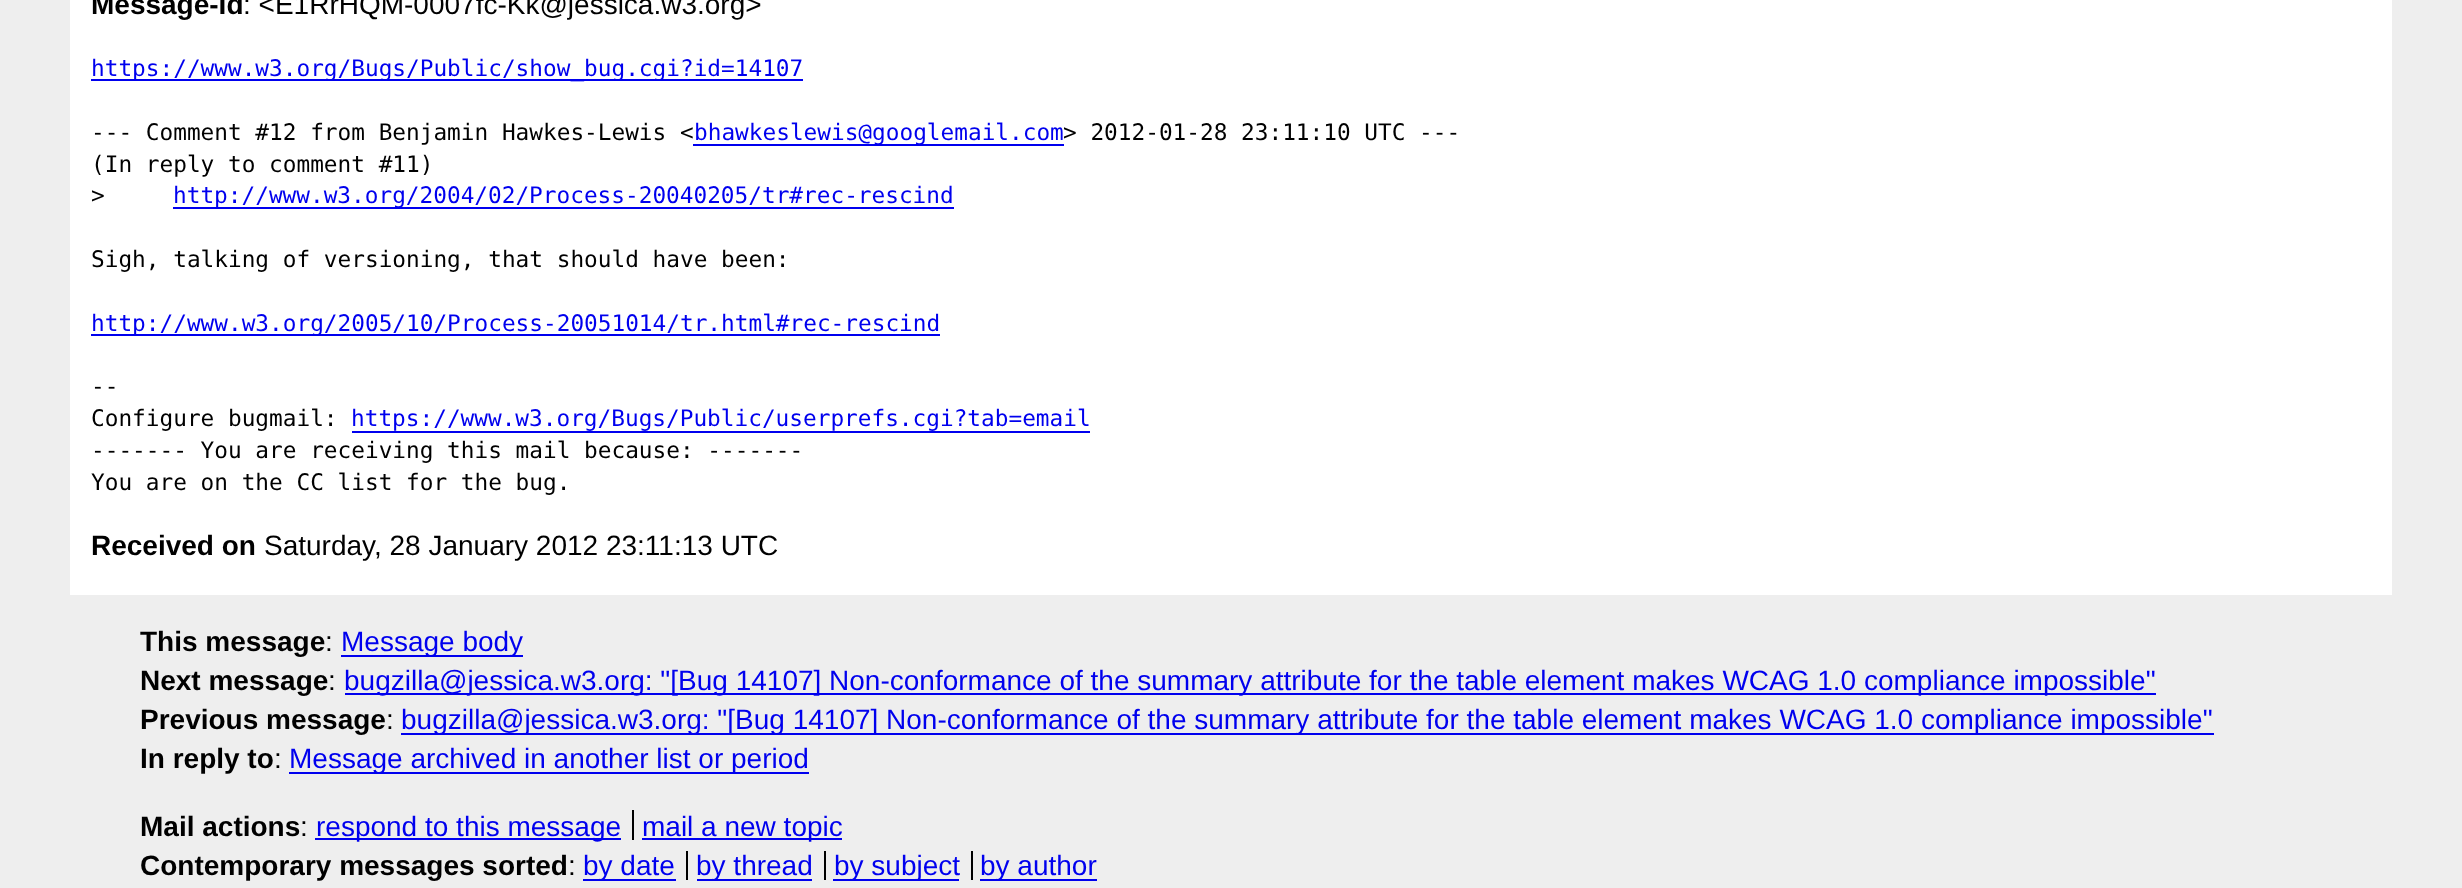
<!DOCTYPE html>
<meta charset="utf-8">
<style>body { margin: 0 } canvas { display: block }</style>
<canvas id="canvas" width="2462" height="888"></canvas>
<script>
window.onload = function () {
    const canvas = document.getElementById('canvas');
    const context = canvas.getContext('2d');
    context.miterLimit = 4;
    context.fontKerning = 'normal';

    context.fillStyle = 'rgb(238, 238, 238)';
    context.fillRect(0, 0, 2462, 888);
    context.fillStyle = 'rgb(255, 255, 255)';
    context.fillRect(70, 0, 2322, 595);
    context.fillStyle = 'rgb(0, 0, 238)';
    context.fillRect(91, 79, 712, 2);
    context.fillRect(693, 144, 371, 2);
    context.fillRect(173, 207, 781, 2);
    context.fillRect(91, 334, 849, 2);
    context.fillRect(352, 431, 738, 2);
    context.fillRect(341, 655, 182, 2);
    context.fillRect(345, 693, 1811, 2);
    context.fillRect(401, 733, 1813, 2);
    context.fillRect(289, 772, 520, 2);
    context.fillRect(315, 838, 306, 2);
    context.fillStyle = 'rgb(0, 0, 0)';
    context.fillRect(632, 810, 2, 30);
    context.fillStyle = 'rgb(0, 0, 238)';
    context.fillRect(642, 838, 200, 2);
    context.fillRect(583, 879, 93, 2);
    context.fillStyle = 'rgb(0, 0, 0)';
    context.fillRect(686, 851, 2, 29);
    context.fillStyle = 'rgb(0, 0, 238)';
    context.fillRect(697, 879, 115, 2);
    context.fillStyle = 'rgb(0, 0, 0)';
    context.fillRect(824, 851, 2, 29);
    context.fillStyle = 'rgb(0, 0, 238)';
    context.fillRect(833, 879, 126, 2);
    context.fillStyle = 'rgb(0, 0, 0)';
    context.fillRect(971, 851, 2, 29);
    context.fillStyle = 'rgb(0, 0, 238)';
    context.fillRect(980, 879, 117, 2);
    context.font = 'bold 28px Liberation Sans';
    context.fillStyle = 'rgb(0, 0, 0)';
    context.fillText('Message-Id', 91, 14);
    context.font = '28px Liberation Sans';
    context.fillText(': <E1RrHQM-0007fc-Kk@jessica.w3.org>', 243, 14);
    context.font = '22.75px DejaVu Sans Mono';
    context.fillStyle = 'rgb(0, 0, 238)';
    context.fillText('https://www.w3.org/Bugs/Public/show_bug.cgi?id=14107', 91, 76);
    context.fillStyle = 'rgb(0, 0, 0)';
    context.fillText('--- Comment #12 from Benjamin Hawkes-Lewis <', 91, 140);
    context.fillStyle = 'rgb(0, 0, 238)';
    context.fillText('bhawkeslewis@googlemail.com', 694, 140);
    context.fillStyle = 'rgb(0, 0, 0)';
    context.fillText('> 2012-01-28 23:11:10 UTC ---', 1063, 140);
    context.fillText('(In reply to comment #11)', 91, 172);
    context.fillText('>', 91, 203);
    context.fillStyle = 'rgb(0, 0, 238)';
    context.fillText('http://www.w3.org/2004/02/Process-20040205/tr#rec-rescind', 173, 203);
    context.fillStyle = 'rgb(0, 0, 0)';
    context.fillText('Sigh, talking of versioning, that should have been:', 91, 267);
    context.fillStyle = 'rgb(0, 0, 238)';
    context.fillText('http://www.w3.org/2005/10/Process-20051014/tr.html#rec-rescind', 91, 331);
    context.fillStyle = 'rgb(0, 0, 0)';
    context.fillText('--', 91, 394);
    context.fillText('Configure bugmail:', 91, 426);
    context.fillStyle = 'rgb(0, 0, 238)';
    context.fillText('https://www.w3.org/Bugs/Public/userprefs.cgi?tab=email', 351, 426);
    context.fillStyle = 'rgb(0, 0, 0)';
    context.fillText('------- You are receiving this mail because: -------', 91, 458);
    context.fillText('You are on the CC list for the bug.', 91, 490);
    context.font = 'bold 28px Liberation Sans';
    context.fillText('Received on', 91, 555);
    context.font = '28px Liberation Sans';
    context.fillText('Saturday, 28 January 2012 23:11:13 UTC', 264, 555);
    context.font = 'bold 28px Liberation Sans';
    context.fillText('This message', 140, 651);
    context.font = '28px Liberation Sans';
    context.fillText(':', 325, 651);
    context.fillStyle = 'rgb(0, 0, 238)';
    context.fillText('Message body', 341, 651);
    context.font = 'bold 28px Liberation Sans';
    context.fillStyle = 'rgb(0, 0, 0)';
    context.fillText('Next message', 140, 690);
    context.font = '28px Liberation Sans';
    context.fillText(':', 328, 690);
    context.fillStyle = 'rgb(0, 0, 238)';
    context.fillText('bugzilla@jessica.w3.org: "[Bug 14107] Non-conformance of the summary attribute for the table element makes WCAG 1.0 compliance impossible"', 344, 690);
    context.font = 'bold 28px Liberation Sans';
    context.fillStyle = 'rgb(0, 0, 0)';
    context.fillText('Previous message', 140, 729);
    context.font = '28px Liberation Sans';
    context.fillText(':', 386, 729);
    context.fillStyle = 'rgb(0, 0, 238)';
    context.fillText('bugzilla@jessica.w3.org: "[Bug 14107] Non-conformance of the summary attribute for the table element makes WCAG 1.0 compliance impossible"', 401, 729);
    context.font = 'bold 28px Liberation Sans';
    context.fillStyle = 'rgb(0, 0, 0)';
    context.fillText('In reply to', 140, 768);
    context.font = '28px Liberation Sans';
    context.fillText(':', 274, 768);
    context.fillStyle = 'rgb(0, 0, 238)';
    context.fillText('Message archived in another list or period', 289, 768);
    context.font = 'bold 28px Liberation Sans';
    context.fillStyle = 'rgb(0, 0, 0)';
    context.fillText('Mail actions', 140, 836);
    context.font = '28px Liberation Sans';
    context.fillText(':', 300, 836);
    context.fillStyle = 'rgb(0, 0, 238)';
    context.fillText('respond to this message', 316, 836);
    context.fillText('mail a new topic', 642, 836);
    context.font = 'bold 28px Liberation Sans';
    context.fillStyle = 'rgb(0, 0, 0)';
    context.fillText('Contemporary messages sorted', 140, 875);
    context.font = '28px Liberation Sans';
    context.fillText(':', 568, 875);
    context.fillStyle = 'rgb(0, 0, 238)';
    context.fillText('by date', 583, 875);
    context.fillText('by thread', 696, 875);
    context.fillText('by subject', 834, 875);
    context.fillText('by author', 980, 875);
};
</script>
